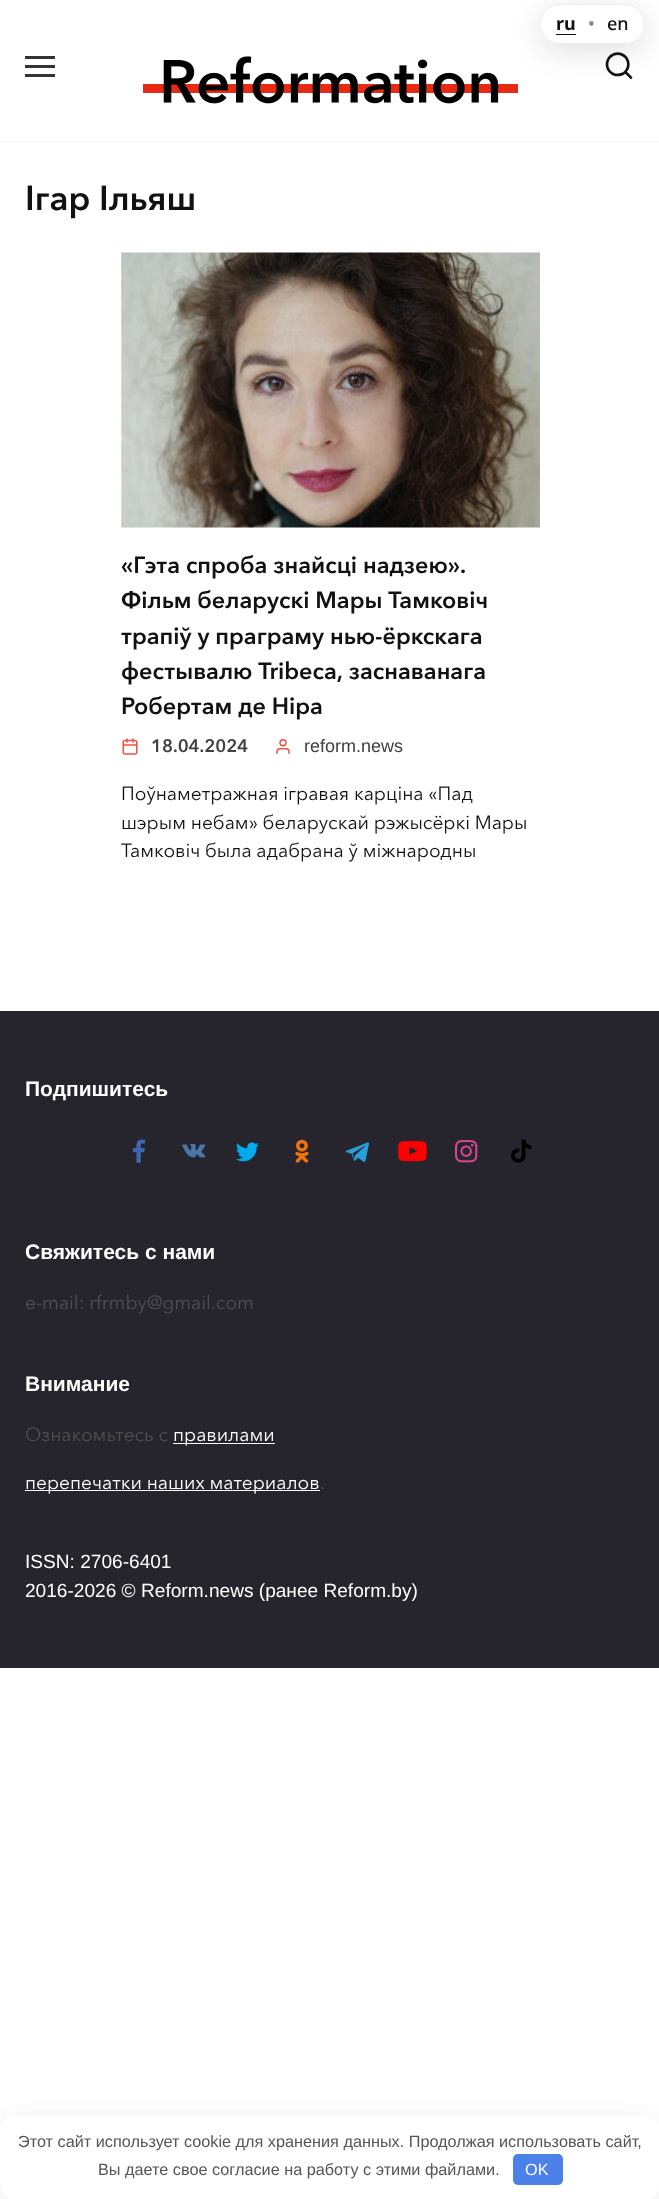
<!DOCTYPE html>
<meta charset="utf-8">
<style>body { margin: 0 } canvas { display: block }</style>
<canvas id="canvas" width="659" height="2199"></canvas>
<img id="img1" src="images/1.png" hidden>
<img id="img2" src="images/2.png" hidden>
<img id="img3" src="images/3.png" hidden>
<img id="img4" src="images/4.png" hidden>
<img id="img5" src="images/5.png" hidden>
<img id="img6" src="images/6.png" hidden>
<img id="img7" src="images/7.png" hidden>
<img id="img8" src="images/8.png" hidden>
<img id="img9" src="images/9.png" hidden>
<img id="img10" src="images/10.png" hidden>
<script>
window.onload = function () {
    const canvas = document.getElementById('canvas');
    const context = canvas.getContext('2d');
    context.miterLimit = 4;
    context.fontKerning = 'normal';

    context.fillStyle = 'rgb(255, 255, 255)';
    context.fillRect(0, 0, 659, 2199);
    context.drawImage(document.getElementById('img1'), 143, 56, 375, 48);
    context.save();
    context.beginPath();
    context.moveTo(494, 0);
    context.lineTo(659, 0);
    context.lineTo(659, 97);
    context.lineTo(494, 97);
    context.closePath();
    context.moveTo(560, 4);
    context.lineTo(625, 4);
    context.bezierCurveTo(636, 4, 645, 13, 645, 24);
    context.bezierCurveTo(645, 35, 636, 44, 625, 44);
    context.lineTo(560, 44);
    context.bezierCurveTo(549, 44, 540, 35, 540, 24);
    context.bezierCurveTo(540, 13, 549, 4, 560, 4);
    context.closePath();
    context.clip('evenodd');
    context.fillStyle = 'rgba(0, 0, 0, 0.12)';
    context.filter = 'blur(15px)';
    context.beginPath();
    context.roundRect(540, 11, 105, 40, 20);
    context.fill();
    context.filter = 'none';
    context.restore();
    context.fillStyle = 'rgba(255, 255, 255, 0.85)';
    context.beginPath();
    context.roundRect(540, 4, 105, 40, 20);
    context.fill();
    context.beginPath();
    context.roundRect(540.5, 4.5, 104, 39, 19.5);
    context.strokeStyle = 'rgba(0, 0, 0, 0.08)';
    context.stroke();
    context.fillStyle = 'rgb(17, 17, 17)';
    context.fillRect(556, 34, 20, 1);
    context.fillStyle = 'rgb(242, 245, 249)';
    context.fillRect(0, 141, 659, 1);
    context.fillStyle = 'rgb(51, 51, 51)';
    context.fillRect(25, 56, 30, 3);
    context.fillRect(25, 65, 30, 3);
    context.fillRect(25, 74, 30, 3);
    context.drawImage(document.getElementById('img2'), 121, 252, 419, 276);
    context.fillStyle = 'rgb(38, 37, 45)';
    context.fillRect(0, 1011, 659, 657);
    context.drawImage(document.getElementById('img3'), 132, 1139, 13, 24);
    context.drawImage(document.getElementById('img4'), 182, 1143, 24, 15);
    context.drawImage(document.getElementById('img5'), 236, 1142, 23, 20);
    context.drawImage(document.getElementById('img6'), 295, 1139, 14, 24);
    context.drawImage(document.getElementById('img7'), 345, 1142, 24, 20);
    context.drawImage(document.getElementById('img8'), 398, 1141, 29, 21);
    context.drawImage(document.getElementById('img9'), 455, 1140, 23, 23);
    context.drawImage(document.getElementById('img10'), 511, 1139, 21, 24);
    context.fillStyle = 'rgb(255, 255, 255)';
    context.fillRect(173, 1443, 102, 1);
    context.fillRect(25, 1490, 295, 1);
    context.fillStyle = 'rgba(41, 44, 56, 0.2)';
    context.filter = 'blur(12.5px)';
    context.beginPath();
    context.roundRect(6, 2125, 648, 73, 9);
    context.fill();
    context.filter = 'none';
    context.fillStyle = 'rgb(255, 255, 255)';
    context.beginPath();
    context.roundRect(0, 2115, 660, 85, 15);
    context.fill();
    context.fillStyle = 'rgb(75, 129, 232)';
    context.beginPath();
    context.roundRect(513, 2154, 50, 31, 5);
    context.fill();
    context.font = 'bold 18px Noto Sans';
    context.fillStyle = 'rgb(17, 17, 17)';
    context.fillText('ru', 556, 30);
    context.font = '500 18px Noto Sans';
    context.fillStyle = 'rgb(136, 136, 136)';
    context.fillText('•', 588, 30);
    context.fillStyle = 'rgb(17, 17, 17)';
    context.fillText('en', 607, 30);
    context.font = '32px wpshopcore';
    context.fillText('🔍', 603, 79);
    context.font = 'bold 34.5px Avenir';
    context.fillText('Ігар Ільяш', 25, 210);
    context.font = 'bold 23.4px Avenir';
    context.fillText('«Гэта спроба знайсці надзею».', 121, 573);
    context.fillText('Фільм беларускі Мары Тамковіч', 121, 608);
    context.fillText('трапіў у праграму нью-ёркскага', 121, 644);
    context.fillText('фестывалю Tribeca, заснаванага', 121, 679);
    context.fillText('Робертам де Ніра', 121, 714);
    context.font = '18px wpshopcore';
    context.fillStyle = 'rgb(235, 85, 66)';
    context.fillText('📅', 121, 754);
    context.font = 'bold 18px Avenir';
    context.fillStyle = 'rgb(65, 65, 65)';
    context.fillText('18.04.2024', 151, 752);
    context.font = '18px wpshopcore';
    context.fillStyle = 'rgb(235, 85, 66)';
    context.fillText('👤', 274, 754);
    context.font = '18px Liberation Sans';
    context.fillStyle = 'rgb(65, 65, 65)';
    context.fillText('reform.news', 304, 752);
    context.font = '19.1px Avenir';
    context.fillStyle = 'rgb(17, 17, 17)';
    context.fillText('Поўнаметражная ігравая карціна «Пад', 121, 800);
    context.fillText('шэрым небам» беларускай рэжысёркі Мары', 121, 829);
    context.fillText('Тамковіч была адабрана ў міжнародны', 121, 857);
    context.font = 'bold 21px Liberation Sans';
    context.fillStyle = 'rgb(255, 255, 255)';
    context.fillText('Подпишитесь', 25, 1096);
    context.fillText('Свяжитесь с нами', 25, 1259);
    context.font = '19.1px Avenir';
    context.fillStyle = 'rgb(79, 79, 79)';
    context.fillText('e-mail: rfrmby@gmail.com', 25, 1309);
    context.font = 'bold 21px Liberation Sans';
    context.fillStyle = 'rgb(255, 255, 255)';
    context.fillText('Внимание', 25, 1391);
    context.font = '19.1px Avenir';
    context.fillStyle = 'rgb(79, 79, 79)';
    context.fillText('Ознакомьтесь с', 25, 1441);
    context.fillStyle = 'rgb(255, 255, 255)';
    context.fillText('правилами', 173, 1441);
    context.fillText('перепечатки наших материалов', 25, 1489);
    context.fillStyle = 'rgb(79, 79, 79)';
    context.fillText('.', 320, 1489);
    context.font = '19.1px Liberation Sans';
    context.fillStyle = 'rgb(255, 255, 255)';
    context.fillText('ISSN: 2706-6401', 25, 1568);
    context.fillText('2016-2026 © Reform.news (ранее Reform.by)', 25, 1597);
    context.font = '16.25px Liberation Sans';
    context.fillStyle = 'rgb(85, 85, 85)';
    context.fillText('Этот сайт использует cookie для хранения данных. Продолжая использовать сайт,', 18, 2147);
    context.fillText('Вы даете свое согласие на работу с этими файлами.', 98, 2175);
    context.fillStyle = 'rgb(255, 255, 255)';
    context.fillText('OK', 525, 2175);
};
</script>
